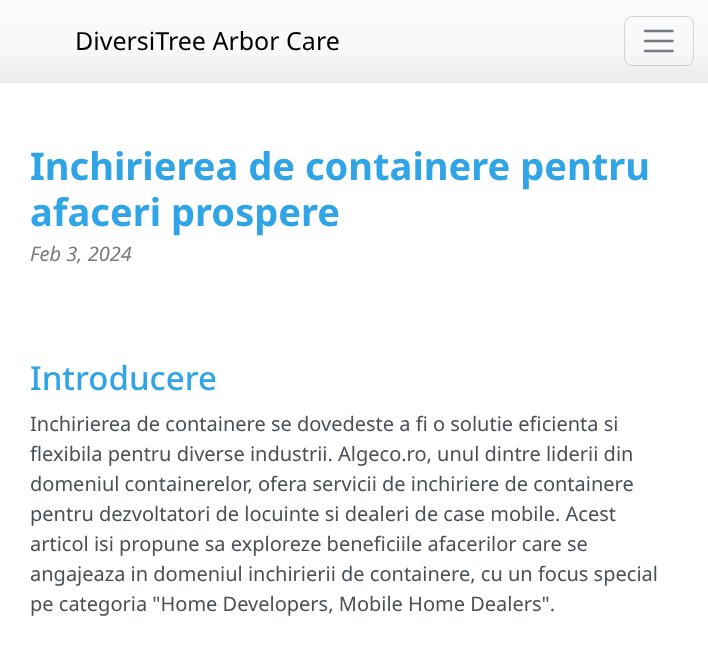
<!DOCTYPE html>
<meta charset="utf-8">
<style>body { margin: 0 } canvas { display: block }</style>
<canvas id="canvas" width="708" height="649"></canvas>
<script>
window.onload = function () {
    const canvas = document.getElementById('canvas');
    const context = canvas.getContext('2d');
    context.miterLimit = 4;
    context.fontKerning = 'normal';
    let gradient;

    context.fillStyle = 'rgb(255, 255, 255)';
    context.fillRect(0, 0, 708, 649);
    gradient = context.createLinearGradient(354, 0, 354, 83);
    gradient.addColorStop(0, 'rgb(249, 250, 251)');
    gradient.addColorStop(0.6, 'rgb(248, 249, 250)');
    gradient.addColorStop(1, 'rgb(233, 234, 235)');
    context.fillStyle = gradient;
    context.fillRect(0, 0, 708, 83);
    context.beginPath();
    context.roundRect(624.5, 16.5, 69, 49, 7.5);
    context.strokeStyle = 'rgba(0, 0, 0, 0.15)';
    context.stroke();
    context.beginPath();
    context.moveTo(645, 31);
    context.lineTo(672.5, 31);
    context.moveTo(645, 41);
    context.lineTo(672.5, 41);
    context.moveTo(645, 51);
    context.lineTo(672.5, 51);
    context.strokeStyle = 'rgb(117, 122, 128)';
    context.lineWidth = 2.5;
    context.lineCap = 'round';
    context.stroke();
    context.font = '25px Noto Sans';
    context.fillStyle = 'rgb(0, 0, 0)';
    context.fillText('DiversiTree Arbor Care', 75, 50);
    context.font = 'bold 38.1px Noto Sans';
    context.fillStyle = 'rgb(47, 164, 231)';
    context.fillText('Inchirierea de containere pentru', 30, 180);
    context.fillText('afaceri prospere', 30, 226);
    context.font = 'italic 20px Noto Sans';
    context.fillStyle = 'rgb(119, 124, 129)';
    context.fillText('Feb 3, 2024', 30, 261);
    context.font = '500 33px Noto Sans';
    context.fillStyle = 'rgb(47, 164, 231)';
    context.fillText('Introducere', 30, 390);
    context.font = '20px Noto Sans';
    context.fillStyle = 'rgb(73, 80, 87)';
    context.fillText('Inchirierea de containere se dovedeste a fi o solutie eficienta si', 30, 431);
    context.fillText('flexibila pentru diverse industrii. Algeco.ro, unul dintre liderii din', 30, 461);
    context.fillText('domeniul containerelor, ofera servicii de inchiriere de containere', 30, 491);
    context.fillText('pentru dezvoltatori de locuinte si dealeri de case mobile. Acest', 30, 521);
    context.fillText('articol isi propune sa exploreze beneficiile afacerilor care se', 30, 551);
    context.fillText('angajeaza in domeniul inchirierii de containere, cu un focus special', 30, 581);
    context.fillText('pe categoria "Home Developers, Mobile Home Dealers".', 30, 611);
};
</script>
